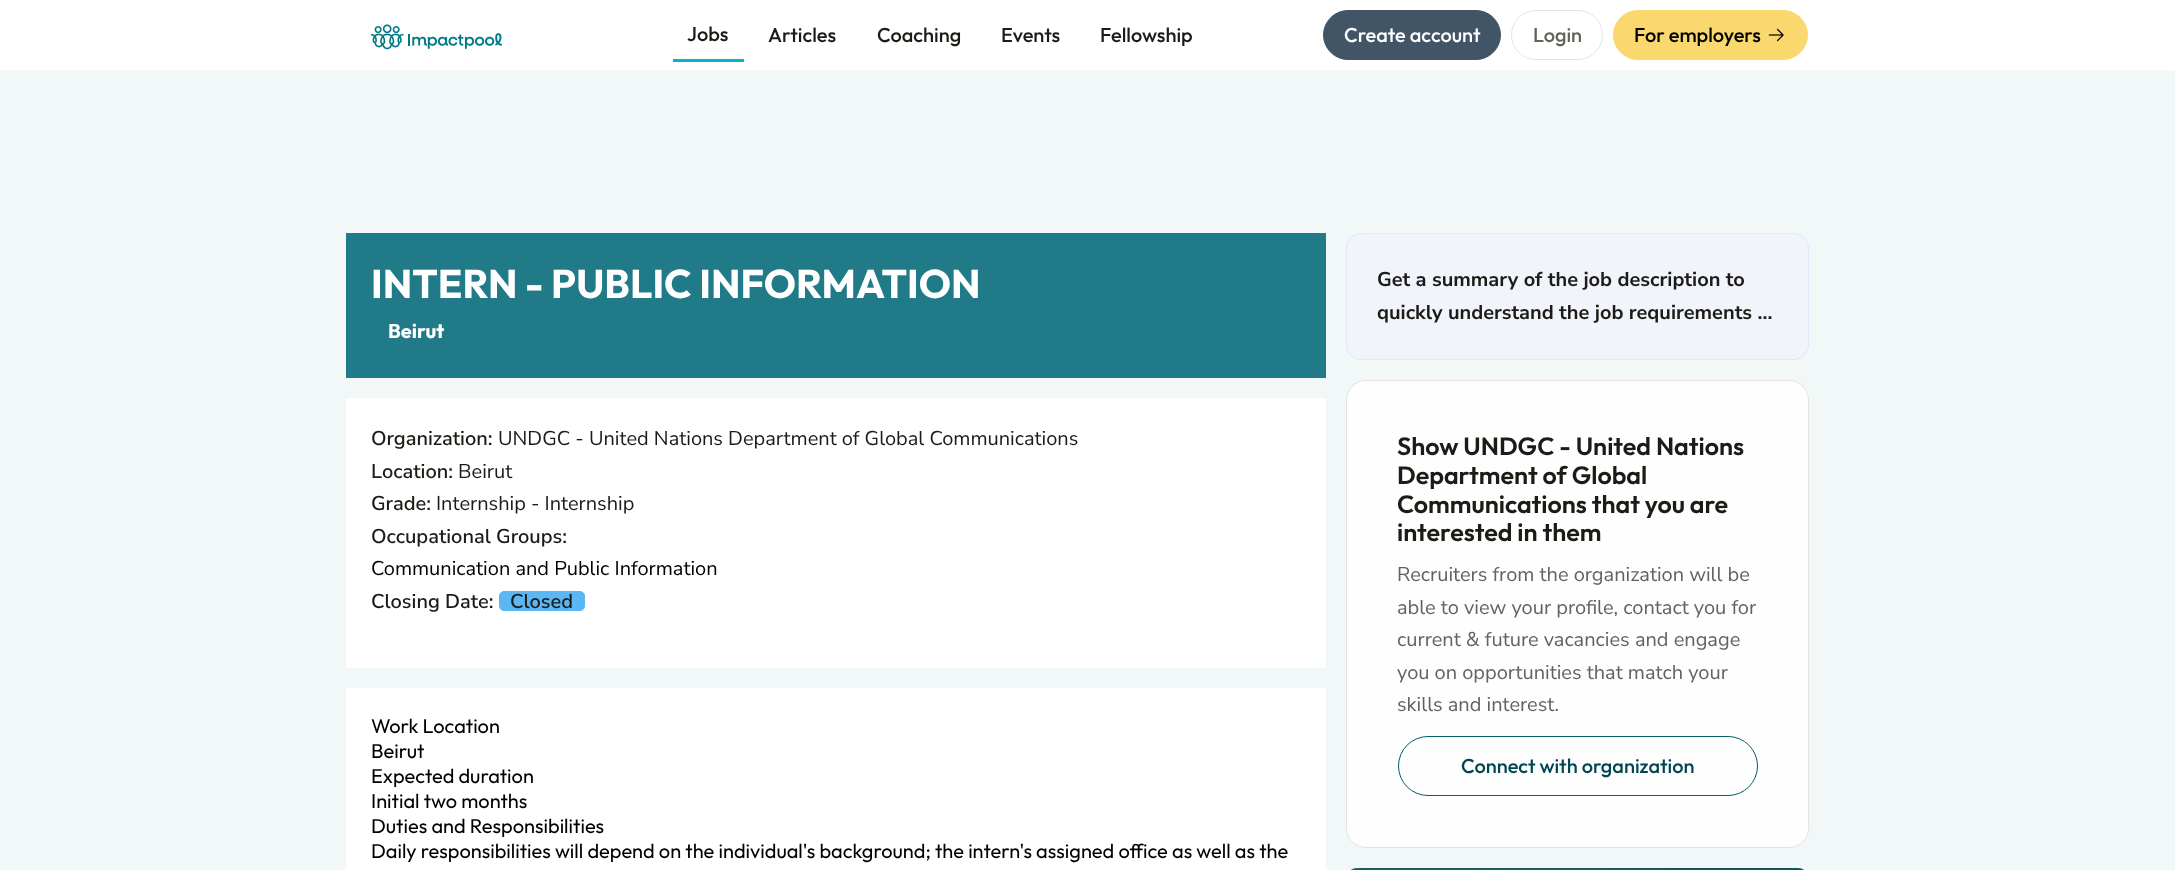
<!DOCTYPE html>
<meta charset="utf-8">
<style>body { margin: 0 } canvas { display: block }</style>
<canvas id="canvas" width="2175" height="870"></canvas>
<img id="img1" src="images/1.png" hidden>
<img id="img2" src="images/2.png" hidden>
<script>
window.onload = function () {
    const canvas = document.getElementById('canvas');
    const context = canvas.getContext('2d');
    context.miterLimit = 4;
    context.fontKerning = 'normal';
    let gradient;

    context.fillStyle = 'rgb(255, 255, 255)';
    context.fillRect(0, 0, 2175, 870);
    context.drawImage(document.getElementById('img1'), 370, 24, 132, 26);
    context.fillStyle = 'rgb(0, 182, 206)';
    context.fillRect(673, 59, 71, 3);
    context.fillStyle = 'rgb(66, 85, 102)';
    context.beginPath();
    context.roundRect(1323.5, 10.5, 177, 49, 24.5);
    context.fill();
    context.strokeStyle = 'rgb(66, 85, 102)';
    context.stroke();
    context.beginPath();
    context.roundRect(1511.5, 10.5, 91, 49, 24.5);
    context.strokeStyle = 'rgb(229, 228, 223)';
    context.stroke();
    context.fillStyle = 'rgb(250, 216, 109)';
    context.beginPath();
    context.roundRect(1613.5, 10.5, 194, 49, 24.5);
    context.fill();
    context.strokeStyle = 'rgb(250, 216, 109)';
    context.stroke();
    context.drawImage(document.getElementById('img2'), 1768, 28, 16, 14);
    context.fillStyle = 'rgb(242, 248, 248)';
    context.fillRect(0, 70, 2175, 800);
    context.fillStyle = 'rgb(33, 122, 135)';
    context.fillRect(346, 233, 980, 145);
    context.fillStyle = 'rgb(255, 255, 255)';
    context.fillRect(346, 398, 980, 270);
    context.fillStyle = 'rgb(91, 182, 244)';
    context.beginPath();
    context.roundRect(499.5, 591.5, 85, 19, 4.5);
    context.fill();
    context.strokeStyle = 'rgb(91, 182, 244)';
    context.stroke();
    context.fillStyle = 'rgb(255, 255, 255)';
    context.fillRect(346, 688, 980, 182);
    context.fillStyle = 'rgb(242, 244, 252)';
    context.beginPath();
    context.roundRect(1346.5, 233.5, 462, 126, 14.5);
    context.fill();
    context.strokeStyle = 'rgb(225, 230, 248)';
    context.stroke();
    context.fillStyle = 'rgb(254, 254, 254)';
    context.beginPath();
    context.roundRect(1346.5, 380.5, 462, 467, 19.5);
    context.fill();
    context.strokeStyle = 'rgb(229, 228, 223)';
    context.stroke();
    context.beginPath();
    context.roundRect(1398.5, 736.5, 359, 59, 29.5);
    context.strokeStyle = 'rgb(0, 94, 107)';
    context.stroke();
    gradient = context.createLinearGradient(1512, 804, 1643, 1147);
    gradient.addColorStop(0, 'rgb(25, 96, 103)');
    gradient.addColorStop(0.67, 'rgb(20, 79, 80)');
    gradient.addColorStop(1, 'rgb(33, 121, 133)');
    context.fillStyle = gradient;
    context.beginPath();
    context.roundRect(1346, 868, 463, 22, 20);
    context.fill();
    context.font = '500 20px Outfit';
    context.fillStyle = 'rgb(28, 27, 22)';
    context.fillText('Jobs', 687, 41);
    context.fillText('Articles', 768, 42);
    context.fillText('Coaching', 877, 42);
    context.fillText('Events', 1001, 42);
    context.fillText('Fellowship', 1100, 42);
    context.fillStyle = 'rgb(255, 255, 255)';
    context.fillText('Create account', 1344, 42);
    context.fillStyle = 'rgb(99, 98, 91)';
    context.fillText('Login', 1533, 42);
    context.fillStyle = 'rgb(0, 0, 0)';
    context.fillText('For employers', 1634, 42);
    context.font = 'bold 40px Outfit';
    context.fillStyle = 'rgb(255, 255, 255)';
    context.fillText('INTERN - PUBLIC INFORMATION', 371, 298);
    context.font = 'bold 20px FontAwesome';
    context.fillText('', 371, 338);
    context.font = 'bold 20px Outfit';
    context.fillText('Beirut', 388, 338);
    context.font = '600 20px Nunito Sans';
    context.fillStyle = 'rgb(28, 27, 22)';
    context.fillText('Organization:', 371, 445);
    context.font = '20px Nunito Sans';
    context.fillText('UNDGC - United Nations Department of Global Communications', 498, 445);
    context.font = '600 20px Nunito Sans';
    context.fillText('Location:', 371, 478);
    context.font = '20px Nunito Sans';
    context.fillText('Beirut', 458, 478);
    context.font = '600 20px Nunito Sans';
    context.fillText('Grade:', 371, 510);
    context.font = '20px Nunito Sans';
    context.fillText('Internship - Internship', 436, 510);
    context.font = '600 20px Nunito Sans';
    context.fillText('Occupational Groups:', 371, 543);
    context.font = '20px Nunito Sans';
    context.fillStyle = 'rgb(0, 0, 0)';
    context.fillText('Communication and Public Information', 371, 575);
    context.font = '600 20px Nunito Sans';
    context.fillStyle = 'rgb(28, 27, 22)';
    context.fillText('Closing Date:', 371, 608);
    context.fillText('Closed', 510, 608);
    context.font = '20px Outfit';
    context.fillStyle = 'rgb(0, 0, 0)';
    context.fillText('Work Location', 371, 733);
    context.fillText('Beirut', 371, 758);
    context.fillText('Expected duration', 371, 783);
    context.fillText('Initial two months', 371, 808);
    context.fillText('Duties and Responsibilities', 371, 833);
    context.fillText('Daily responsibilities will depend on the individual\'s background; the intern\'s assigned office as well as the', 371, 858);
    context.font = 'bold 20px Nunito Sans';
    context.fillStyle = 'rgb(28, 27, 22)';
    context.fillText('Get a summary of the job description to', 1377, 286);
    context.fillText('quickly understand the job requirements ...', 1377, 319);
    context.font = '600 25px Outfit';
    context.fillText('Show UNDGC - United Nations', 1397, 455);
    context.fillText('Department of Global', 1397, 484);
    context.fillText('Communications that you are', 1397, 513);
    context.fillText('interested in them', 1397, 541);
    context.font = '20px Nunito Sans';
    context.fillStyle = 'rgb(99, 98, 91)';
    context.fillText('Recruiters from the organization will be', 1397, 581);
    context.fillText('able to view your profile, contact you for', 1397, 614);
    context.fillText('current & future vacancies and engage', 1397, 646);
    context.fillText('you on opportunities that match your', 1397, 679);
    context.fillText('skills and interest.', 1397, 711);
    context.font = '500 20px Outfit';
    context.fillStyle = 'rgb(0, 69, 82)';
    context.fillText('Connect with organization', 1461, 773);
};
</script>
